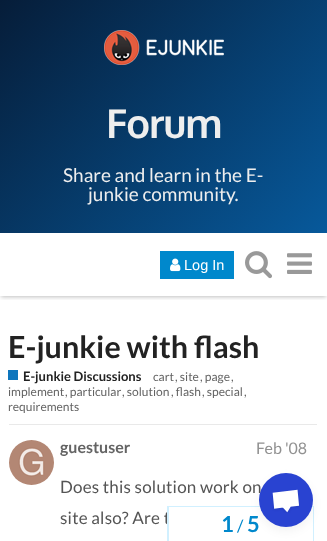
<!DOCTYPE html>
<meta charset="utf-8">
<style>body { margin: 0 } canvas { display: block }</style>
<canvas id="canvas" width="327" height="541"></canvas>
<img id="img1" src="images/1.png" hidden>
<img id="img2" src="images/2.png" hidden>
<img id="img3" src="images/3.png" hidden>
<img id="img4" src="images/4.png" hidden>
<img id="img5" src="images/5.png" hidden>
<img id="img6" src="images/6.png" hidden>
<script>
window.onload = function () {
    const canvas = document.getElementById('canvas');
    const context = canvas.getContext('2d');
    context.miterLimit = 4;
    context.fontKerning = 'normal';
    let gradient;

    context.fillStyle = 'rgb(255, 255, 255)';
    context.fillRect(0, 0, 327, 541);
    gradient = context.createLinearGradient(23, -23, 304, 257);
    gradient.addColorStop(0, 'rgb(6, 29, 57)');
    gradient.addColorStop(1, 'rgb(7, 89, 155)');
    context.fillStyle = gradient;
    context.fillRect(0, 0, 327, 233);
    context.drawImage(document.getElementById('img1'), 104, 30, 120, 35);
    context.save();
    context.beginPath();
    context.rect(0, 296, 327, 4);
    context.clip();
    context.fillStyle = 'rgba(0, 0, 0, 0.25)';
    context.filter = 'blur(2px)';
    context.beginPath();
    context.rect(1, 236, 325, 61);
    context.fill();
    context.filter = 'none';
    context.restore();
    context.fillStyle = 'rgb(0, 136, 204)';
    context.fillRect(160, 251, 74, 28);
    context.drawImage(document.getElementById('img2'), 170, 258, 11, 14);
    context.drawImage(document.getElementById('img3'), 245, 251, 27, 28);
    context.drawImage(document.getElementById('img4'), 287, 253, 25, 21);
    context.fillStyle = 'rgb(14, 118, 189)';
    context.fillRect(8, 370, 10, 10);
    context.drawImage(document.getElementById('img5'), 9, 440, 45, 45);
    context.fillStyle = 'rgb(233, 233, 233)';
    context.fillRect(9, 424, 308, 1);
    context.fillStyle = 'rgb(209, 240, 255)';
    context.fillRect(167, 506, 147, 1);
    context.fillRect(313, 506, 1, 35);
    context.fillStyle = 'rgba(0, 0, 0, 0.05)';
    context.filter = 'blur(5px)';
    context.beginPath();
    context.roundRect(259, 477, 54, 54, 27);
    context.fill();
    context.filter = 'none';
    context.letterSpacing = '-1px';
    context.font = 'bold 40px Oxygen';
    context.fillStyle = 'rgb(238, 238, 238)';
    context.fillText('Forum', 106, 138);
    context.letterSpacing = '0px';
    context.font = '19px Lato';
    context.fillText('Share and learn in the E-', 63, 182);
    context.fillText('junkie community.', 88, 201);
    context.font = '14.5px Liberation Sans';
    context.fillStyle = 'rgb(255, 255, 255)';
    context.fillText('Log In', 184, 270);
    context.font = 'bold 30.5px Lato';
    context.fillStyle = 'rgb(34, 34, 34)';
    context.fillText('E-junkie with flash', 8, 358);
    context.font = 'bold 13px Lato';
    context.fillText('E-junkie Discussions', 23, 381);
    context.font = '12px Lato';
    context.fillStyle = 'rgb(100, 100, 100)';
    context.fillText('cart', 153, 381);
    context.fillText(', site', 175, 381);
    context.fillText(', page', 200, 381);
    context.fillText(',', 231, 381);
    context.fillText('implement', 8, 396);
    context.fillText(', particular', 65, 396);
    context.fillText(', solution', 122, 396);
    context.fillText(', flash', 171, 396);
    context.fillText(', special', 202, 396);
    context.fillText(',', 244, 396);
    context.fillText('requirements', 8, 411);
    context.font = 'bold 16px Lato';
    context.fillText('guestuser', 60, 453);
    context.font = '16px Lato';
    context.fillStyle = 'rgb(145, 145, 145)';
    context.fillText('Feb \'08', 256, 454);
    context.letterSpacing = '0.2px';
    context.font = '17px Lato';
    context.fillStyle = 'rgb(85, 85, 85)';
    context.fillText('Does this solution work on', 60, 493);
    context.fillText('site also? Are t', 60, 524);
    context.fillStyle = 'rgb(255, 255, 255)';
    context.fillRect(169, 515, 1, 9);
    context.fillStyle = 'rgb(209, 240, 255)';
    context.fillRect(167, 506, 1, 35);
    context.fillRect(168, 507, 1, 34);
    context.letterSpacing = '0px';
    context.font = 'bold 22px Lato';
    context.fillStyle = 'rgb(0, 136, 204)';
    context.fillText('1', 221, 532);
    context.font = '17px Lato';
    context.fillText('/', 237, 532);
    context.font = 'bold 22px Lato';
    context.fillText('5', 247, 532);
    context.fillStyle = 'rgb(41, 67, 209)';
    context.beginPath();
    context.arc(286, 500, 27, 0, 2 * Math.PI);
    context.fill();
    context.drawImage(document.getElementById('img6'), 272, 489, 28, 24);
};
</script>
